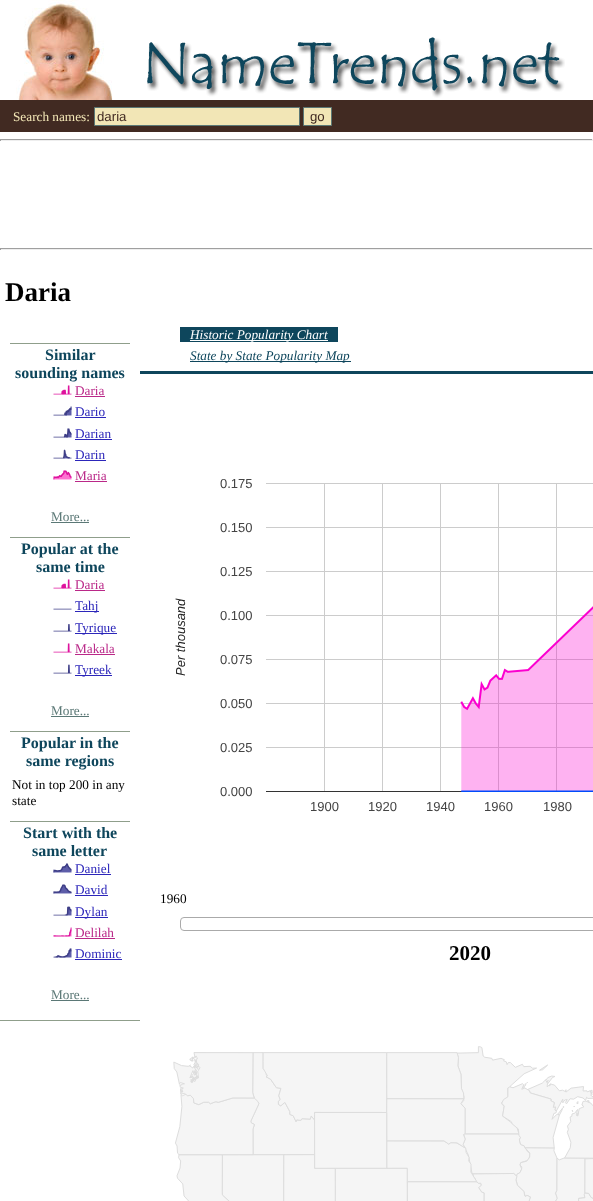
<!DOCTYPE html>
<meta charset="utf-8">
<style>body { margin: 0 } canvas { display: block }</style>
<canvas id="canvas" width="593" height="1201"></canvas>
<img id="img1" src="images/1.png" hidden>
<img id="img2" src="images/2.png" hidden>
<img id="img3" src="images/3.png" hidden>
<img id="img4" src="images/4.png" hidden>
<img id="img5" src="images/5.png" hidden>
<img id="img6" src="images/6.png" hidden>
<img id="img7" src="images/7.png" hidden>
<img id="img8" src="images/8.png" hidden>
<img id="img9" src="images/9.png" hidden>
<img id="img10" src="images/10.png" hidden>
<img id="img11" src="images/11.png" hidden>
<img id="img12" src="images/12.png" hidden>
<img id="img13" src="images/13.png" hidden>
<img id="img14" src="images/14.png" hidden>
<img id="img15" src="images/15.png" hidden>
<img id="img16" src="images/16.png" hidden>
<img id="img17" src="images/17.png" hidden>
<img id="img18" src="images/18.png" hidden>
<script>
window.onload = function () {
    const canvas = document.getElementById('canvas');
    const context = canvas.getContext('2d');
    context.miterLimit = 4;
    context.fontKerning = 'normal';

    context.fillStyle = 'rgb(255, 255, 255)';
    context.fillRect(0, 0, 593, 1201);
    context.drawImage(document.getElementById('img1'), 16, 0, 97, 100);
    context.drawImage(document.getElementById('img2'), 147, 37, 418, 61);
    context.fillStyle = 'rgb(65, 42, 34)';
    context.fillRect(0, 100, 593, 32);
    context.fillStyle = 'rgb(242, 230, 182)';
    context.beginPath();
    context.rect(94.5, 107.5, 205, 18);
    context.fill();
    context.strokeStyle = 'rgb(91, 120, 118)';
    context.stroke();
    context.beginPath();
    context.rect(303.5, 107.5, 28, 18);
    context.fill();
    context.stroke();
    context.fillStyle = 'rgb(159, 159, 159)';
    context.fillRect(0, 139, 593, 1);
    context.fillStyle = 'rgb(238, 238, 238)';
    context.fillRect(592, 139, 1, 2);
    context.fillRect(0, 140, 593, 1);
    context.fillStyle = 'rgb(159, 159, 159)';
    context.fillRect(0, 139, 1, 2);
    context.fillRect(0, 248, 593, 1);
    context.fillStyle = 'rgb(238, 238, 238)';
    context.fillRect(592, 248, 1, 2);
    context.fillRect(0, 249, 593, 1);
    context.fillStyle = 'rgb(159, 159, 159)';
    context.fillRect(0, 248, 1, 2);
    context.fillStyle = 'rgb(143, 158, 139)';
    context.fillRect(10, 343, 120, 1);
    context.drawImage(document.getElementById('img3'), 53, 385, 19, 10);
    context.fillStyle = 'rgb(186, 40, 136)';
    context.fillRect(75, 396, 30, 1);
    context.drawImage(document.getElementById('img4'), 53, 406, 19, 10);
    context.fillStyle = 'rgb(44, 38, 186)';
    context.fillRect(75, 417, 31, 1);
    context.drawImage(document.getElementById('img5'), 53, 428, 19, 10);
    context.fillRect(75, 439, 37, 1);
    context.drawImage(document.getElementById('img6'), 53, 449, 19, 10);
    context.fillRect(75, 460, 31, 1);
    context.drawImage(document.getElementById('img7'), 53, 470, 19, 10);
    context.fillStyle = 'rgb(186, 40, 136)';
    context.fillRect(75, 481, 32, 1);
    context.fillStyle = 'rgb(91, 120, 118)';
    context.fillRect(51, 522, 38, 1);
    context.fillStyle = 'rgb(143, 158, 139)';
    context.fillRect(10, 537, 120, 1);
    context.drawImage(document.getElementById('img3'), 53, 579, 19, 10);
    context.fillStyle = 'rgb(186, 40, 136)';
    context.fillRect(75, 590, 30, 1);
    context.drawImage(document.getElementById('img8'), 53, 608, 19, 2);
    context.fillStyle = 'rgb(44, 38, 186)';
    context.fillRect(75, 611, 24, 1);
    context.drawImage(document.getElementById('img9'), 53, 624, 19, 8);
    context.fillRect(75, 633, 42, 1);
    context.drawImage(document.getElementById('img10'), 53, 643, 19, 10);
    context.fillStyle = 'rgb(186, 40, 136)';
    context.fillRect(75, 654, 40, 1);
    context.drawImage(document.getElementById('img11'), 53, 664, 19, 10);
    context.fillStyle = 'rgb(44, 38, 186)';
    context.fillRect(75, 675, 37, 1);
    context.fillStyle = 'rgb(91, 120, 118)';
    context.fillRect(51, 716, 38, 1);
    context.fillStyle = 'rgb(143, 158, 139)';
    context.fillRect(10, 731, 120, 1);
    context.fillRect(10, 821, 120, 1);
    context.drawImage(document.getElementById('img12'), 53, 863, 19, 10);
    context.fillStyle = 'rgb(44, 38, 186)';
    context.fillRect(75, 874, 36, 1);
    context.drawImage(document.getElementById('img13'), 53, 884, 19, 10);
    context.fillRect(75, 895, 33, 1);
    context.drawImage(document.getElementById('img14'), 53, 906, 19, 10);
    context.fillRect(75, 917, 33, 1);
    context.drawImage(document.getElementById('img15'), 53, 927, 19, 10);
    context.fillStyle = 'rgb(186, 40, 136)';
    context.fillRect(75, 938, 40, 1);
    context.drawImage(document.getElementById('img16'), 53, 948, 19, 10);
    context.fillStyle = 'rgb(44, 38, 186)';
    context.fillRect(75, 959, 47, 1);
    context.fillStyle = 'rgb(91, 120, 118)';
    context.fillRect(51, 1000, 38, 1);
    context.fillStyle = 'rgb(14, 70, 92)';
    context.fillRect(140, 371, 453, 3);
    context.fillRect(180, 327, 158, 15);
    context.fillStyle = 'rgb(255, 255, 255)';
    context.fillRect(190, 340, 138, 1);
    context.fillStyle = 'rgb(14, 70, 92)';
    context.fillRect(190, 361, 161, 1);
    context.drawImage(document.getElementById('img17'), 266, 483, 327, 309);
    context.beginPath();
    context.roundRect(180.5, 917.5, 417, 13, 3.5);
    context.strokeStyle = 'rgb(170, 170, 170)';
    context.stroke();
    context.drawImage(document.getElementById('img18'), 173, 1027, 420, 174);
    context.fillStyle = 'rgb(143, 158, 139)';
    context.fillRect(0, 1020, 140, 1);
    context.font = '13.25px Liberation Serif';
    context.fillStyle = 'rgb(242, 230, 182)';
    context.fillText('Search names:', 13, 121);
    context.font = '13.25px Liberation Sans';
    context.fillStyle = 'rgb(65, 42, 34)';
    context.fillText('daria', 97, 121);
    context.fillText('go', 310, 121);
    context.font = 'bold 27px Liberation Serif';
    context.fillStyle = 'rgb(0, 0, 0)';
    context.fillText('Daria', 5, 301);
    context.font = 'bold 16px Liberation Serif';
    context.fillStyle = 'rgb(14, 70, 92)';
    context.fillText('Similar', 45, 360);
    context.fillText('sounding names', 15, 378);
    context.font = '13.25px Liberation Serif';
    context.fillStyle = 'rgb(186, 40, 136)';
    context.fillText('Daria', 75, 395);
    context.fillStyle = 'rgb(44, 38, 186)';
    context.fillText('Dario', 75, 416);
    context.fillText('Darian', 75, 438);
    context.fillText('Darin', 75, 459);
    context.fillStyle = 'rgb(186, 40, 136)';
    context.fillText('Maria', 75, 480);
    context.fillStyle = 'rgb(91, 120, 118)';
    context.fillText('More...', 51, 521);
    context.font = 'bold 16px Liberation Serif';
    context.fillStyle = 'rgb(14, 70, 92)';
    context.fillText('Popular at the', 21, 554);
    context.fillText('same time', 36, 572);
    context.font = '13.25px Liberation Serif';
    context.fillStyle = 'rgb(186, 40, 136)';
    context.fillText('Daria', 75, 589);
    context.fillStyle = 'rgb(44, 38, 186)';
    context.fillText('Tahj', 75, 610);
    context.fillText('Tyrique', 75, 632);
    context.fillStyle = 'rgb(186, 40, 136)';
    context.fillText('Makala', 75, 653);
    context.fillStyle = 'rgb(44, 38, 186)';
    context.fillText('Tyreek', 75, 674);
    context.fillStyle = 'rgb(91, 120, 118)';
    context.fillText('More...', 51, 715);
    context.font = 'bold 16px Liberation Serif';
    context.fillStyle = 'rgb(14, 70, 92)';
    context.fillText('Popular in the', 21, 748);
    context.fillText('same regions', 26, 766);
    context.font = '13.25px Liberation Serif';
    context.fillStyle = 'rgb(0, 0, 0)';
    context.fillText('Not in top 200 in any', 12, 789);
    context.fillText('state', 12, 805);
    context.font = 'bold 16px Liberation Serif';
    context.fillStyle = 'rgb(14, 70, 92)';
    context.fillText('Start with the', 23, 838);
    context.fillText('same letter', 32, 856);
    context.font = '13.25px Liberation Serif';
    context.fillStyle = 'rgb(44, 38, 186)';
    context.fillText('Daniel', 75, 873);
    context.fillText('David', 75, 894);
    context.fillText('Dylan', 75, 916);
    context.fillStyle = 'rgb(186, 40, 136)';
    context.fillText('Delilah', 75, 937);
    context.fillStyle = 'rgb(44, 38, 186)';
    context.fillText('Dominic', 75, 958);
    context.fillStyle = 'rgb(91, 120, 118)';
    context.fillText('More...', 51, 999);
    context.font = 'italic 13.25px Liberation Serif';
    context.fillStyle = 'rgb(255, 255, 255)';
    context.fillText('Historic Popularity Chart', 190, 339);
    context.fillStyle = 'rgb(14, 70, 92)';
    context.fillText('State by State Popularity Map', 190, 360);
    context.font = '13px Liberation Sans';
    context.fillStyle = 'rgb(68, 68, 68)';
    context.fillText('0.175', 220, 488);
    context.fillText('0.150', 220, 532);
    context.fillText('0.125', 220, 576);
    context.font = 'italic 13px Liberation Sans';
    context.fillStyle = 'rgb(34, 34, 34)';
    context.save();
    context.translate(185, 676);
    context.rotate(-90 * Math.PI / 180);
    context.fillText('Per thousand', 0, 0);
    context.restore();
    context.font = '13px Liberation Sans';
    context.fillStyle = 'rgb(68, 68, 68)';
    context.fillText('0.100', 220, 620);
    context.fillText('0.075', 220, 664);
    context.fillText('0.050', 220, 708);
    context.fillText('0.025', 220, 752);
    context.fillText('0.000', 220, 796);
    context.fillText('1900', 310, 811);
    context.fillText('1920', 368, 811);
    context.fillText('1940', 426, 811);
    context.fillText('1960', 484, 811);
    context.fillText('1980', 543, 811);
    context.font = '13.25px Liberation Serif';
    context.fillStyle = 'rgb(0, 0, 0)';
    context.fillText('1960', 160, 903);
    context.font = 'bold 21px Liberation Serif';
    context.fillText('2020', 449, 960);
};
</script>
